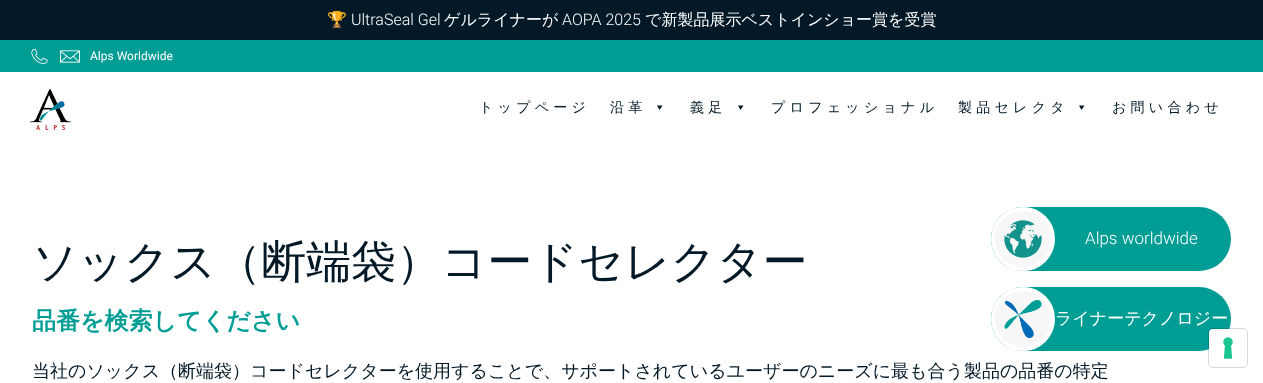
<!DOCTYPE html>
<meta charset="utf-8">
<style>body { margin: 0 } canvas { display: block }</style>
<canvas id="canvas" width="1263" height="383"></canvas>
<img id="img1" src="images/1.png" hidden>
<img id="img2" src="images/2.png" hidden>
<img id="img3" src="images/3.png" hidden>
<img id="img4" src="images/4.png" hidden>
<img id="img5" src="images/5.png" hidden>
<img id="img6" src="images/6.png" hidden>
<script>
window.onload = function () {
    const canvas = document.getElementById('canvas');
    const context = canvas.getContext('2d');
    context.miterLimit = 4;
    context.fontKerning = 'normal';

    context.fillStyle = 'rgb(255, 255, 255)';
    context.fillRect(0, 0, 1263, 383);
    context.fillStyle = 'rgb(3, 25, 39)';
    context.fillRect(0, 0, 1263, 40);
    context.fillStyle = 'rgb(0, 157, 149)';
    context.fillRect(0, 40, 1263, 32);
    context.drawImage(document.getElementById('img1'), 31, 49, 17, 15);
    context.drawImage(document.getElementById('img2'), 60, 50, 20, 13);
    context.drawImage(document.getElementById('img3'), 30, 89, 41, 41);
    context.fillStyle = 'rgb(3, 25, 39)';
    context.beginPath();
    context.moveTo(662.5, 105.5);
    context.lineTo(659.5, 110);
    context.lineTo(657, 105.5);
    context.closePath();
    context.fill();
    context.beginPath();
    context.moveTo(743.5, 105.5);
    context.lineTo(740.5, 110);
    context.lineTo(738, 105.5);
    context.closePath();
    context.fill();
    context.beginPath();
    context.moveTo(1084.5, 105.5);
    context.lineTo(1081.5, 110);
    context.lineTo(1079, 105.5);
    context.closePath();
    context.fill();
    context.fillStyle = 'rgb(0, 157, 149)';
    context.beginPath();
    context.roundRect(991, 207, 240, 64, 32);
    context.fill();
    context.fillStyle = 'rgb(247, 247, 247)';
    context.beginPath();
    context.arc(1023, 239, 30, 0, 2 * Math.PI);
    context.fill();
    context.strokeStyle = 'rgb(255, 255, 255)';
    context.lineWidth = 4;
    context.stroke();
    context.drawImage(document.getElementById('img4'), 1004, 220, 38, 38);
    context.fillStyle = 'rgb(0, 157, 149)';
    context.beginPath();
    context.roundRect(991, 287, 240, 64, 32);
    context.fill();
    context.fillStyle = 'rgb(247, 247, 247)';
    context.beginPath();
    context.arc(1023, 319, 30, 0, 2 * Math.PI);
    context.fill();
    context.stroke();
    context.drawImage(document.getElementById('img5'), 1004, 300, 38, 38);
    context.beginPath();
    context.roundRect(1208.5, 328.5, 39, 39, 4.5);
    context.strokeStyle = 'rgba(0, 0, 0, 0.15)';
    context.lineWidth = 1;
    context.stroke();
    context.fillStyle = 'rgb(255, 255, 255)';
    context.beginPath();
    context.roundRect(1209, 329, 38, 38, 4);
    context.fill();
    context.drawImage(document.getElementById('img6'), 1223, 337, 10, 22);
    context.font = '16px Noto Color Emoji';
    context.fillText('🏆', 327, 25);
    context.font = '300 16px Roboto';
    context.fillText('UltraSeal Gel', 351, 25);
    context.font = '500 16px WenQuanYi Zen Hei';
    context.fillText('ゲルライナーが', 444, 25);
    context.font = '300 16px Roboto';
    context.fillText('AOPA 2025', 562, 25);
    context.font = '500 16px WenQuanYi Zen Hei';
    context.fillText('で新製品展示ベストインショー賞を受賞', 645, 25);
    context.font = '12px Roboto';
    context.fillText('Alps Worldwide', 90, 60);
    context.letterSpacing = '4.25px';
    context.font = '500 14px WenQuanYi Zen Hei';
    context.fillStyle = 'rgb(3, 25, 39)';
    context.fillText('トップページ', 479, 112);
    context.fillText('沿革', 610, 112);
    context.fillText('義足', 690, 112);
    context.fillText('プロフェッショナル', 771, 112);
    context.fillText('製品セレクタ', 958, 112);
    context.fillText('お問い合わせ', 1112, 112);
    context.letterSpacing = '0px';
    context.font = '500 45px WenQuanYi Zen Hei';
    context.fillText('ソックス（断端袋）コードセレクター', 32, 277);
    context.font = 'bold 24px WenQuanYi Zen Hei';
    context.fillStyle = 'rgb(0, 157, 149)';
    context.fillText('品番を検索してください', 32, 329);
    context.font = '500 18px WenQuanYi Zen Hei';
    context.fillStyle = 'rgb(3, 25, 39)';
    context.fillText('当社のソックス（断端袋）コードセレクターを使用することで、サポートされているユーザーのニーズに最も合う製品の品番の特定', 32, 377);
    context.font = '300 17px Roboto';
    context.fillStyle = 'rgb(255, 255, 255)';
    context.fillText('Alps worldwide', 1085, 244);
    context.font = '500 17px WenQuanYi Zen Hei';
    context.fillText('ライナーテクノロジー', 1055, 324);
};
</script>
